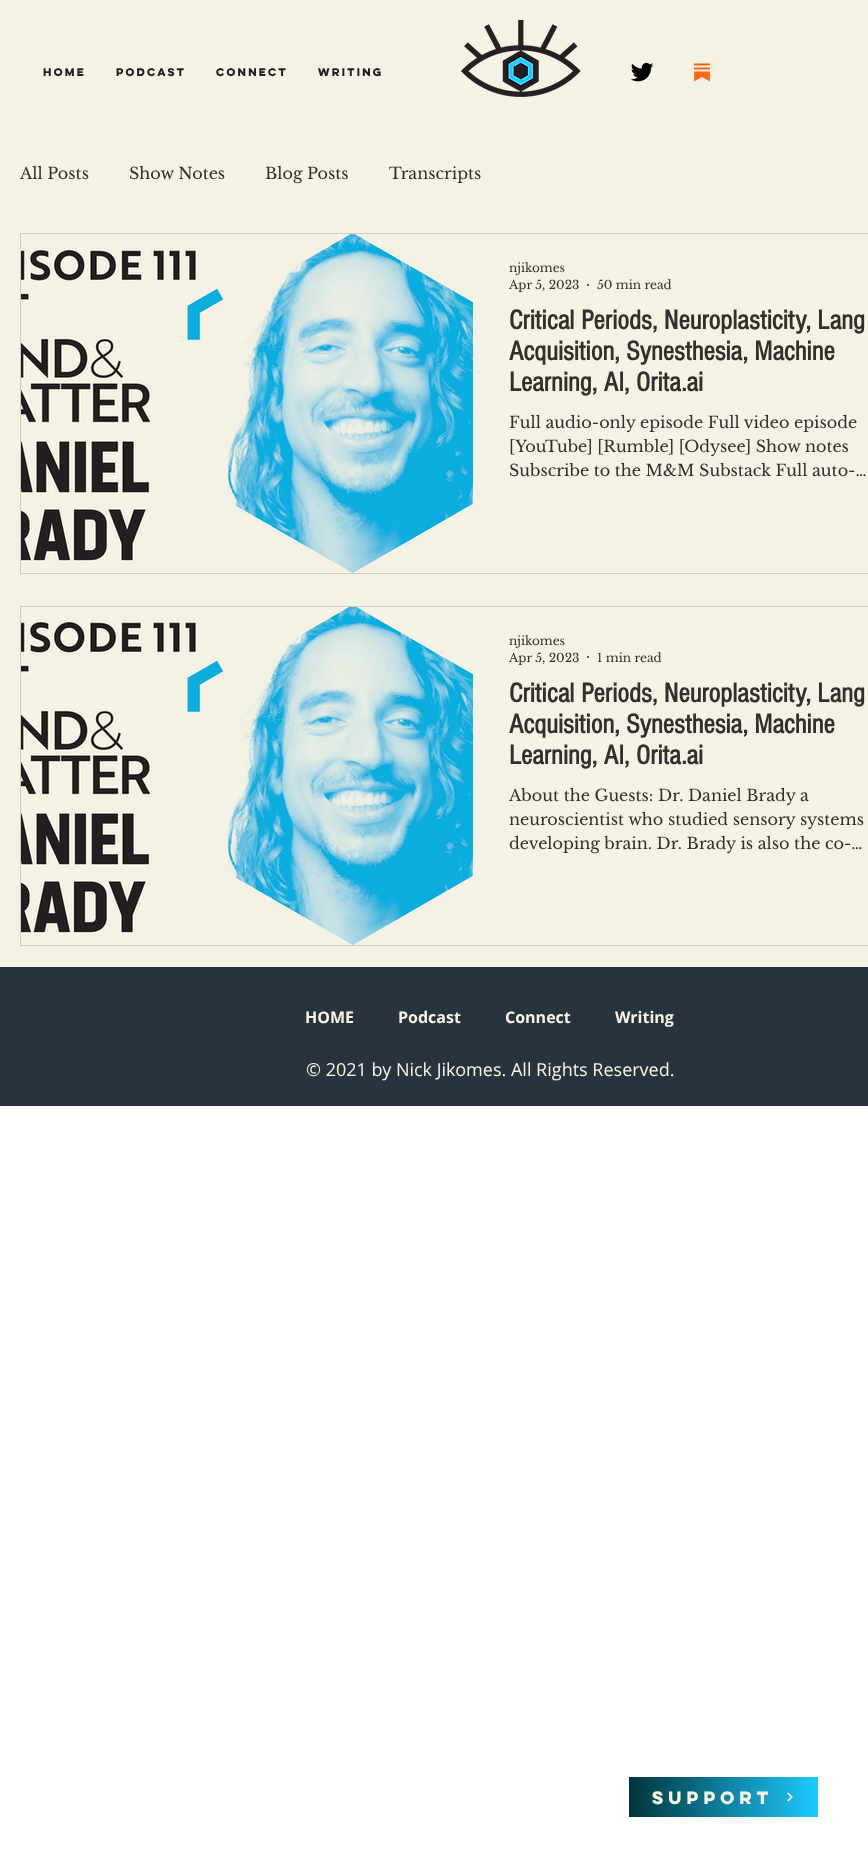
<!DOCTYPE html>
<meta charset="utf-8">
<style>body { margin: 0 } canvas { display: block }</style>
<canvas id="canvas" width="868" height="1867"></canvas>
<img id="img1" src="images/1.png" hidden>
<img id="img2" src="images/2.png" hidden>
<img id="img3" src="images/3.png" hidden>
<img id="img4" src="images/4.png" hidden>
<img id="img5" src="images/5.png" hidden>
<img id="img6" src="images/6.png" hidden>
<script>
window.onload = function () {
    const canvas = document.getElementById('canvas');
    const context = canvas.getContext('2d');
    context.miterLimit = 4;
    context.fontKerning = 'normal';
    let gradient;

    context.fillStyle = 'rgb(255, 255, 255)';
    context.fillRect(0, 0, 868, 1867);
    context.fillStyle = 'rgb(244, 242, 228)';
    context.fillRect(0, 0, 868, 967);
    context.drawImage(document.getElementById('img1'), 461, 20, 120, 77);
    context.drawImage(document.getElementById('img2'), 631, 62, 23, 20);
    context.drawImage(document.getElementById('img3'), 693, 63, 18, 19);
    context.strokeStyle = 'rgb(207, 206, 194)';
    context.strokeRect(20.5, 233.5, 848, 340);
    context.drawImage(document.getElementById('img4'), 21, 234, 452, 339);
    context.fillStyle = 'rgb(49, 48, 46)';
    context.beginPath();
    context.arc(588, 285, 1, 0, 2 * Math.PI);
    context.fill();
    context.strokeRect(20.5, 606.5, 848, 339);
    context.drawImage(document.getElementById('img5'), 21, 607, 452, 338);
    context.beginPath();
    context.arc(588, 657, 1, 0, 2 * Math.PI);
    context.fill();
    context.fillStyle = 'rgb(41, 51, 63)';
    context.fillRect(0, 967, 868, 139);
    gradient = context.createLinearGradient(629, 1797, 818, 1797);
    gradient.addColorStop(0, 'rgb(0, 53, 61)');
    gradient.addColorStop(1, 'rgb(28, 202, 255)');
    context.fillStyle = gradient;
    context.fillRect(629, 1777, 189, 40);
    context.drawImage(document.getElementById('img6'), 787, 1792, 6, 10);
    context.font = 'bold 10px "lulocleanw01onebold"';
    context.fillStyle = 'rgb(35, 31, 32)';
    context.fillText('HOME', 43, 76);
    context.fillText('Podcast', 116, 76);
    context.fillText('Connect', 216, 76);
    context.fillText('Writing', 318, 76);
    context.font = '16px Libre Baskerville';
    context.fillStyle = 'rgb(49, 48, 46)';
    context.fillText('All Posts', 20, 179);
    context.fillText('Show Notes', 129, 179);
    context.fillText('Blog Posts', 265, 179);
    context.fillText('Transcripts', 389, 179);
    context.font = '12px Libre Baskerville';
    context.fillText('njikomes', 509, 272);
    context.fillText('Apr 5, 2023', 509, 289);
    context.fillText('50 min read', 597, 289);
    context.font = 'bold 28px "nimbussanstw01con"';
    context.fillText('Critical Periods, Neuroplasticity, Lang', 509, 329);
    context.fillText('Acquisition, Synesthesia, Machine', 509, 360);
    context.fillText('Learning, AI, Orita.ai', 509, 391);
    context.font = '16px Libre Baskerville';
    context.fillText('Full audio-only episode Full video episode', 509, 428);
    context.fillText('[YouTube] [Rumble] [Odysee] Show notes', 509, 452);
    context.fillText('Subscribe to the M&M Substack Full auto-…', 509, 476);
    context.font = '12px Libre Baskerville';
    context.fillText('njikomes', 509, 645);
    context.fillText('Apr 5, 2023', 509, 662);
    context.fillText('1 min read', 597, 662);
    context.font = 'bold 28px "nimbussanstw01con"';
    context.fillText('Critical Periods, Neuroplasticity, Lang', 509, 702);
    context.fillText('Acquisition, Synesthesia, Machine', 509, 733);
    context.fillText('Learning, AI, Orita.ai', 509, 764);
    context.font = '16px Libre Baskerville';
    context.fillText('About the Guests: Dr. Daniel Brady a', 509, 801);
    context.fillText('neuroscientist who studied sensory systems', 509, 825);
    context.fillText('developing brain. Dr. Brady is also the co-…', 509, 849);
    context.font = 'bold 16px Open Sans';
    context.fillStyle = 'rgb(247, 245, 225)';
    context.fillText('HOME', 305, 1023);
    context.fillText('Podcast', 398, 1023);
    context.fillText('Connect', 505, 1023);
    context.fillText('Writing', 615, 1023);
    context.font = '18px Open Sans';
    context.fillText('© 2021 by Nick Jikomes. All Rights Reserved.', 306, 1076);
    context.letterSpacing = '1.5px';
    context.font = 'bold 16px "lulocleanw01onebold"';
    context.fillText('SUPPORT', 652, 1804);
};
</script>
